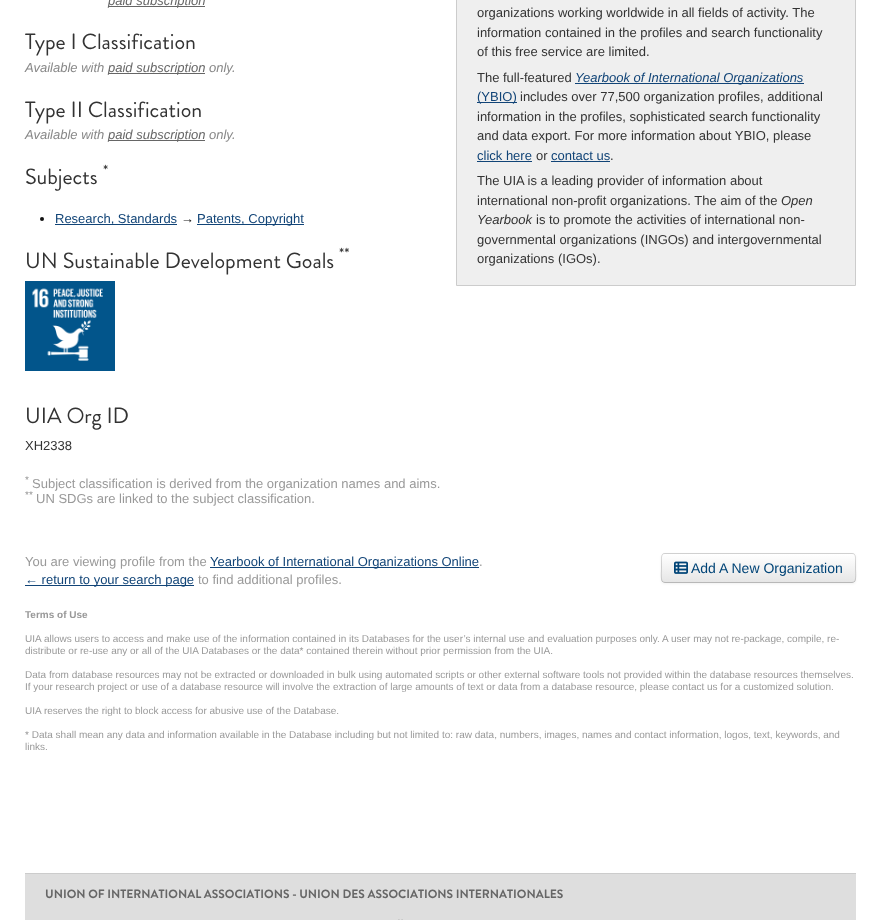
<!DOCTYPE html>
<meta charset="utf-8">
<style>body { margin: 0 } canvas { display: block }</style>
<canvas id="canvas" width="881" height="920"></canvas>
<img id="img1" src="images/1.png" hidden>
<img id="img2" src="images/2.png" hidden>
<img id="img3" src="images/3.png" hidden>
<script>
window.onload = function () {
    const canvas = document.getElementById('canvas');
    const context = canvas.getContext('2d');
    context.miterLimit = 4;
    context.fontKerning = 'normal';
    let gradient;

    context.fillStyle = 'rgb(255, 255, 255)';
    context.fillRect(0, 0, 881, 920);
    context.fillStyle = 'rgb(102, 102, 102)';
    context.fillRect(108, 6, 97, 1);
    context.fillStyle = 'rgb(239, 239, 239)';
    context.beginPath();
    context.rect(456.5, -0.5, 399, 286);
    context.fill();
    context.strokeStyle = 'rgb(204, 204, 204)';
    context.stroke();
    context.fillStyle = 'rgb(17, 68, 119)';
    context.fillRect(575, 83, 229, 1);
    context.fillRect(477, 102, 40, 1);
    context.fillRect(477, 161, 55, 1);
    context.fillRect(551, 161, 59, 1);
    context.fillStyle = 'rgb(102, 102, 102)';
    context.fillRect(108, 73, 97, 1);
    context.fillRect(108, 140, 97, 1);
    context.fillStyle = 'rgb(17, 17, 17)';
    context.beginPath();
    context.arc(42, 219, 2, 0, 2 * Math.PI);
    context.fill();
    context.fillStyle = 'rgb(17, 68, 119)';
    context.fillRect(55, 224, 122, 1);
    context.fillRect(197, 224, 107, 1);
    context.drawImage(document.getElementById('img1'), 25, 281, 90, 90);
    context.fillRect(210, 567, 269, 1);
    context.fillStyle = 'rgba(0, 0, 0, 0.05)';
    context.filter = 'blur(1px)';
    context.beginPath();
    context.roundRect(661, 554, 195, 30, 4);
    context.fill();
    context.filter = 'none';
    context.fillStyle = 'rgb(245, 245, 245)';
    context.beginPath();
    context.roundRect(661, 553, 195, 30, 4);
    context.fill();
    context.save();
    context.beginPath();
    context.roundRect(661, 553, 195, 30, 4);
    context.clip();
    gradient = context.createLinearGradient(759, 554, 759, 582);
    gradient.addColorStop(0, 'rgb(255, 255, 255)');
    gradient.addColorStop(1, 'rgb(230, 230, 230)');
    context.fillStyle = gradient;
    context.fillRect(661, 554, 195, 28);
    context.restore();
    context.beginPath();
    context.moveTo(854.5, 581.5);
    context.bezierCurveTo(854, 582, 853, 582.5, 852, 582.5);
    context.lineTo(665, 582.5);
    context.bezierCurveTo(664, 582.5, 663, 582, 662.5, 581.5);
    context.strokeStyle = 'rgb(184, 184, 184)';
    context.stroke();
    context.beginPath();
    context.moveTo(662.5, 581.5);
    context.bezierCurveTo(660.5, 579.5, 661.5, 571, 661.5, 568);
    context.lineTo(661.5, 560.5);
    context.bezierCurveTo(661.5, 558, 661, 553.5, 665, 553.5);
    context.lineTo(852, 553.5);
    context.bezierCurveTo(856, 553.5, 855.5, 558, 855.5, 560.5);
    context.lineTo(855.5, 568);
    context.bezierCurveTo(855.5, 571, 856.5, 579.5, 854.5, 581.5);
    context.strokeStyle = 'rgba(0, 0, 0, 0.15)';
    context.stroke();
    context.drawImage(document.getElementById('img2'), 674, 561, 14, 13);
    context.fillStyle = 'rgb(17, 68, 119)';
    context.fillRect(25, 585, 169, 1);
    context.fillStyle = 'rgb(222, 222, 222)';
    context.fillRect(25, 874, 831, 46);
    context.fillStyle = 'rgb(204, 204, 204)';
    context.fillRect(25, 873, 831, 1);
    context.drawImage(document.getElementById('img3'), 398, 919, 5, 1);
    context.font = 'italic 13px Liberation Sans';
    context.fillStyle = 'rgb(102, 102, 102)';
    context.fillText('paid subscription', 108, 5);
    context.font = '22px Brandon Grotesque';
    context.fillStyle = 'rgb(51, 51, 51)';
    context.fillText('Type I Classification', 25, 49);
    context.font = '13px Liberation Sans';
    context.fillText('organizations working worldwide in all fields of activity. The', 477, 17);
    context.fillText('information contained in the profiles and search functionality', 477, 37);
    context.fillText('of this free service are limited.', 477, 56);
    context.fillText('The full-featured', 477, 82);
    context.font = 'italic 13px Liberation Sans';
    context.fillStyle = 'rgb(17, 68, 119)';
    context.fillText('Yearbook of International Organizations', 575, 82);
    context.font = '13px Liberation Sans';
    context.fillText('(YBIO)', 477, 101);
    context.fillStyle = 'rgb(51, 51, 51)';
    context.fillText('includes over 77,500 organization profiles, additional', 520, 101);
    context.fillText('information in the profiles, sophisticated search functionality', 477, 121);
    context.fillText('and data export. For more information about YBIO, please', 477, 140);
    context.fillStyle = 'rgb(17, 68, 119)';
    context.fillText('click here', 477, 160);
    context.fillStyle = 'rgb(51, 51, 51)';
    context.fillText('or', 536, 160);
    context.fillStyle = 'rgb(17, 68, 119)';
    context.fillText('contact us', 551, 160);
    context.fillStyle = 'rgb(51, 51, 51)';
    context.fillText('.', 610, 160);
    context.fillText('The UIA is a leading provider of information about', 477, 185);
    context.fillText('international non-profit organizations. The aim of the', 477, 205);
    context.font = 'italic 13px Liberation Sans';
    context.fillText('Open', 781, 205);
    context.fillText('Yearbook', 477, 224);
    context.font = '13px Liberation Sans';
    context.fillText('is to promote the activities of international non-', 536, 224);
    context.fillText('governmental organizations (INGOs) and intergovernmental', 477, 244);
    context.fillText('organizations (IGOs).', 477, 263);
    context.font = 'italic 13px Liberation Sans';
    context.fillStyle = 'rgb(136, 136, 136)';
    context.fillText('Available with', 25, 72);
    context.fillStyle = 'rgb(102, 102, 102)';
    context.fillText('paid subscription', 108, 72);
    context.fillStyle = 'rgb(136, 136, 136)';
    context.fillText('only.', 209, 72);
    context.font = '22px Brandon Grotesque';
    context.fillStyle = 'rgb(51, 51, 51)';
    context.fillText('Type II Classification', 25, 117);
    context.font = 'italic 13px Liberation Sans';
    context.fillStyle = 'rgb(136, 136, 136)';
    context.fillText('Available with', 25, 139);
    context.fillStyle = 'rgb(102, 102, 102)';
    context.fillText('paid subscription', 108, 139);
    context.fillStyle = 'rgb(136, 136, 136)';
    context.fillText('only.', 209, 139);
    context.font = '16px Brandon Grotesque';
    context.fillStyle = 'rgb(51, 51, 51)';
    context.fillText('*', 103, 176);
    context.font = '22px Brandon Grotesque';
    context.fillText('Subjects', 25, 184);
    context.font = '13px Liberation Sans';
    context.fillStyle = 'rgb(17, 68, 119)';
    context.fillText('Research, Standards', 55, 223);
    context.fillStyle = 'rgb(17, 17, 17)';
    context.fillText('→', 181, 223);
    context.fillStyle = 'rgb(17, 68, 119)';
    context.fillText('Patents, Copyright', 197, 223);
    context.font = '16px Brandon Grotesque';
    context.fillStyle = 'rgb(51, 51, 51)';
    context.fillText('**', 339, 259);
    context.font = '22px Brandon Grotesque';
    context.fillText('UN Sustainable Development Goals', 25, 268);
    context.fillText('UIA Org ID', 25, 423);
    context.font = '13px Liberation Sans';
    context.fillText('XH2338', 25, 450);
    context.font = '10px Liberation Sans';
    context.fillStyle = 'rgb(153, 153, 153)';
    context.fillText('*', 25, 483);
    context.font = '13px Liberation Sans';
    context.fillText('Subject classification is derived from the organization names and aims.', 32, 488);
    context.font = '10px Liberation Sans';
    context.fillText('**', 25, 498);
    context.font = '13px Liberation Sans';
    context.fillText('UN SDGs are linked to the subject classification.', 36, 503);
    context.fillText('You are viewing profile from the', 25, 566);
    context.fillStyle = 'rgb(17, 68, 119)';
    context.fillText('Yearbook of International Organizations Online', 210, 566);
    context.fillStyle = 'rgb(153, 153, 153)';
    context.fillText('.', 479, 566);
    context.font = '14px Liberation Sans';
    context.fillStyle = 'rgb(0, 68, 119)';
    context.fillText('Add A New Organization', 691, 573);
    context.font = '13px Liberation Sans';
    context.fillStyle = 'rgb(17, 68, 119)';
    context.fillText('← return to your search page', 25, 584);
    context.fillStyle = 'rgb(153, 153, 153)';
    context.fillText('to find additional profiles.', 198, 584);
    context.font = 'bold 10px Liberation Sans';
    context.fillText('Terms of Use', 25, 618);
    context.font = '10px Liberation Sans';
    context.fillText('UIA allows users to access and make use of the information contained in its Databases for the user’s internal use and evaluation purposes only. A user may not re-package, compile, re-', 25, 642);
    context.fillText('distribute or re-use any or all of the UIA Databases or the data* contained therein without prior permission from the UIA.', 25, 654);
    context.fillText('Data from database resources may not be extracted or downloaded in bulk using automated scripts or other external software tools not provided within the database resources themselves.', 25, 678);
    context.fillText('If your research project or use of a database resource will involve the extraction of large amounts of text or data from a database resource, please contact us for a customized solution.', 25, 690);
    context.fillText('UIA reserves the right to block access for abusive use of the Database.', 25, 714);
    context.fillText('* Data shall mean any data and information available in the Database including but not limited to: raw data, numbers, images, names and contact information, logos, text, keywords, and', 25, 738);
    context.fillText('links.', 25, 750);
    context.font = 'bold 12px Brandon Grotesque';
    context.fillStyle = 'rgb(102, 102, 102)';
    context.fillText('UNION OF INTERNATIONAL ASSOCIATIONS - UNION DES ASSOCIATIONS INTERNATIONALES', 45, 898);
};
</script>
